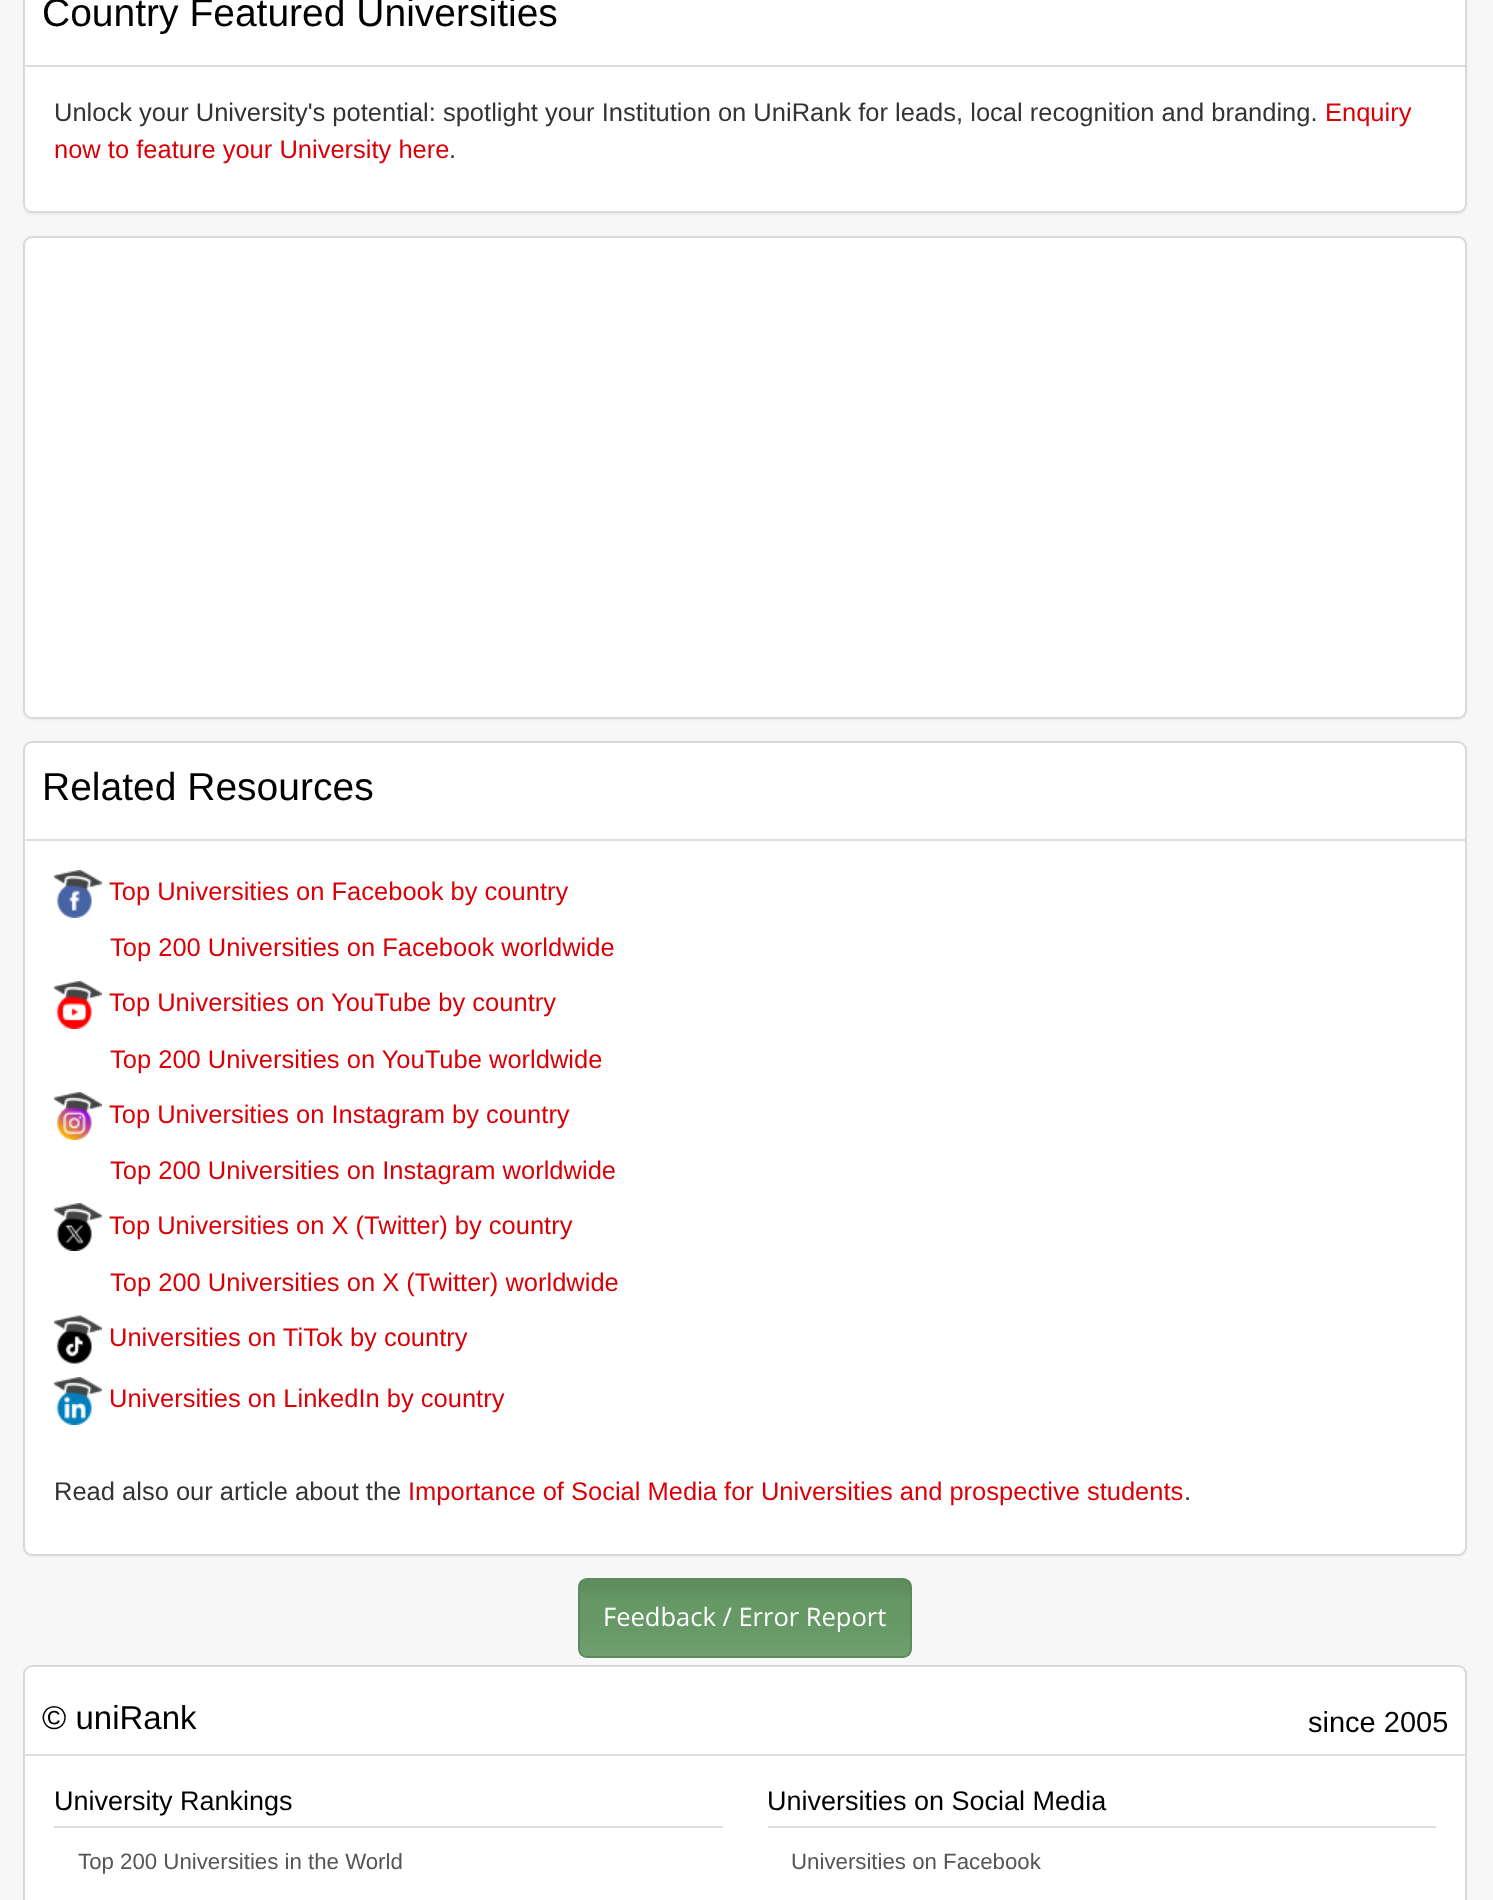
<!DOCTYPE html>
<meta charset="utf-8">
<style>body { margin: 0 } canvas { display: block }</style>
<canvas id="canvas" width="1493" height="1900"></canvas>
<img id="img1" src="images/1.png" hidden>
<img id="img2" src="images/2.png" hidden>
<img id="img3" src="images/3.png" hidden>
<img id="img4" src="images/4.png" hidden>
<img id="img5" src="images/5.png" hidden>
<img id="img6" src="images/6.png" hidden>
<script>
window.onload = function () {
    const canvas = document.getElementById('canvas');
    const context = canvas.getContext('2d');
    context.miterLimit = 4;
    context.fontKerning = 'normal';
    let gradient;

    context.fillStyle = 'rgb(247, 247, 247)';
    context.fillRect(0, 0, 1493, 1900);
    context.fillStyle = 'rgba(0, 0, 0, 0.05)';
    context.filter = 'blur(1px)';
    context.beginPath();
    context.roundRect(23, -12, 1444, 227, 9);
    context.fill();
    context.filter = 'none';
    context.fillStyle = 'rgb(255, 255, 255)';
    context.beginPath();
    context.roundRect(23, -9, 1444, 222, 9);
    context.fill();
    context.beginPath();
    context.roundRect(24, -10, 1442, 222, 8);
    context.strokeStyle = 'rgba(0, 0, 0, 0.15)';
    context.lineWidth = 2;
    context.stroke();
    context.fillStyle = 'rgb(221, 221, 221)';
    context.fillRect(24, 65, 1442, 2);
    context.fillStyle = 'rgba(0, 0, 0, 0.05)';
    context.filter = 'blur(1px)';
    context.beginPath();
    context.roundRect(23, 237, 1444, 483, 9);
    context.fill();
    context.filter = 'none';
    context.fillStyle = 'rgb(255, 255, 255)';
    context.beginPath();
    context.roundRect(23, 236, 1444, 483, 9);
    context.fill();
    context.beginPath();
    context.roundRect(24, 237, 1442, 481, 8);
    context.stroke();
    context.fillStyle = 'rgba(0, 0, 0, 0.05)';
    context.filter = 'blur(1px)';
    context.beginPath();
    context.roundRect(23, 743, 1444, 814, 9);
    context.fill();
    context.filter = 'none';
    context.fillStyle = 'rgb(255, 255, 255)';
    context.beginPath();
    context.roundRect(23, 741, 1444, 815, 9);
    context.fill();
    context.beginPath();
    context.roundRect(24, 742, 1442, 813, 8);
    context.stroke();
    context.fillStyle = 'rgb(221, 221, 221)';
    context.fillRect(24, 839, 1442, 2);
    context.drawImage(document.getElementById('img1'), 54, 870, 48, 48);
    context.drawImage(document.getElementById('img2'), 54, 981, 48, 48);
    context.drawImage(document.getElementById('img3'), 54, 1092, 48, 48);
    context.drawImage(document.getElementById('img4'), 54, 1203, 48, 48);
    context.drawImage(document.getElementById('img5'), 54, 1315, 48, 49);
    context.drawImage(document.getElementById('img6'), 54, 1377, 48, 48);
    context.save();
    context.beginPath();
    context.roundRect(578, 1578, 334, 80, 9);
    context.clip();
    gradient = context.createLinearGradient(745, 1656, 745, 1580);
    gradient.addColorStop(0, 'rgb(113, 160, 113)');
    gradient.addColorStop(0.36, 'rgb(102, 153, 102)');
    gradient.addColorStop(0.69, 'rgb(102, 153, 102)');
    gradient.addColorStop(1, 'rgb(92, 138, 92)');
    context.fillStyle = gradient;
    context.fillRect(579, 1580, 332, 76);
    context.restore();
    context.beginPath();
    context.roundRect(579, 1579, 332, 78, 8);
    context.strokeStyle = 'rgb(92, 138, 92)';
    context.stroke();
    context.fillStyle = 'rgb(255, 255, 255)';
    context.beginPath();
    context.roundRect(23, 1665, 1444, 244, 9);
    context.fill();
    context.beginPath();
    context.roundRect(24, 1666, 1442, 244, 8);
    context.strokeStyle = 'rgba(0, 0, 0, 0.15)';
    context.stroke();
    context.fillStyle = 'rgb(221, 221, 221)';
    context.fillRect(24, 1754, 1442, 2);
    context.fillRect(54, 1826, 669, 2);
    context.fillRect(768, 1826, 668, 2);
    context.font = '39px Liberation Sans';
    context.fillStyle = 'rgb(0, 0, 0)';
    context.fillText('Country Featured Universities', 42, 26);
    context.font = '25.5px Liberation Sans';
    context.fillStyle = 'rgb(51, 51, 51)';
    context.fillText('Unlock your University\'s potential: spotlight your Institution on UniRank for leads, local recognition and branding.', 54, 121);
    context.fillStyle = 'rgb(218, 0, 8)';
    context.fillText('Enquiry', 1325, 121);
    context.fillText('now to feature your University here', 54, 158);
    context.fillStyle = 'rgb(51, 51, 51)';
    context.fillText('.', 449, 158);
    context.font = '39px Liberation Sans';
    context.fillStyle = 'rgb(0, 0, 0)';
    context.fillText('Related Resources', 42, 800);
    context.font = '25.5px Liberation Sans';
    context.fillStyle = 'rgb(218, 0, 8)';
    context.fillText('Top Universities on Facebook by country', 109, 900);
    context.fillText('Top 200 Universities on Facebook worldwide', 110, 956);
    context.fillText('Top Universities on YouTube by country', 109, 1011);
    context.fillText('Top 200 Universities on YouTube worldwide', 110, 1068);
    context.fillText('Top Universities on Instagram by country', 109, 1123);
    context.fillText('Top 200 Universities on Instagram worldwide', 110, 1179);
    context.fillText('Top Universities on X (Twitter) by country', 109, 1234);
    context.fillText('Top 200 Universities on X (Twitter) worldwide', 110, 1291);
    context.fillText('Universities on TiTok by country', 109, 1346);
    context.fillText('Universities on LinkedIn by country', 109, 1407);
    context.fillStyle = 'rgb(51, 51, 51)';
    context.fillText('Read also our article about the', 54, 1500);
    context.fillStyle = 'rgb(218, 0, 8)';
    context.fillText('Importance of Social Media for Universities and prospective students', 408, 1500);
    context.fillStyle = 'rgb(51, 51, 51)';
    context.fillText('.', 1184, 1500);
    context.font = '25.5px Open Sans';
    context.fillStyle = 'rgb(255, 255, 255)';
    context.fillText('Feedback / Error Report', 603, 1626);
    context.font = '33px Liberation Sans';
    context.fillStyle = 'rgb(0, 0, 0)';
    context.fillText('© uniRank', 42, 1729);
    context.font = '29px Liberation Sans';
    context.fillText('since 2005', 1308, 1732);
    context.font = '27px Liberation Sans';
    context.fillText('University Rankings', 54, 1810);
    context.font = '22.25px Liberation Sans';
    context.fillStyle = 'rgb(85, 85, 85)';
    context.fillText('Top 200 Universities in the World', 78, 1869);
    context.font = '27px Liberation Sans';
    context.fillStyle = 'rgb(0, 0, 0)';
    context.fillText('Universities on Social Media', 767, 1810);
    context.font = '22.25px Liberation Sans';
    context.fillStyle = 'rgb(85, 85, 85)';
    context.fillText('Universities on Facebook', 791, 1869);
};
</script>
